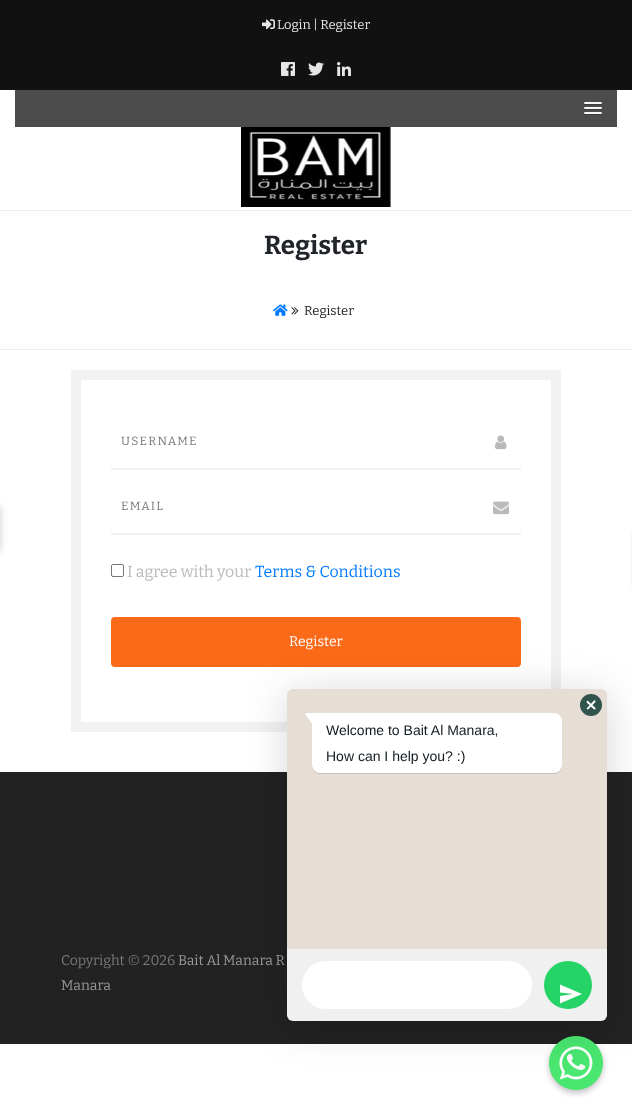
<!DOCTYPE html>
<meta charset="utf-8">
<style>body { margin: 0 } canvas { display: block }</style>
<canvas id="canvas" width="632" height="1115"></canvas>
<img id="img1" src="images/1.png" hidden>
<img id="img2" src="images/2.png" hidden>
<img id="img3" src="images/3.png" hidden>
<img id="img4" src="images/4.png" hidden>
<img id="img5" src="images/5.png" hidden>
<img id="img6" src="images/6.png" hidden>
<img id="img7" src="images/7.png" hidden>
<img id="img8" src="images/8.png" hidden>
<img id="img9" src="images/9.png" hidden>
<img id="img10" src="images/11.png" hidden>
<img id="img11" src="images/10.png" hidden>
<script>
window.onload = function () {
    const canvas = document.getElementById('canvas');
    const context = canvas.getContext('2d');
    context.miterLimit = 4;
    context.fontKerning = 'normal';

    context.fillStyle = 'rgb(255, 255, 255)';
    context.fillRect(0, 0, 632, 1115);
    context.fillStyle = 'rgb(17, 17, 17)';
    context.fillRect(0, 0, 632, 90);
    context.drawImage(document.getElementById('img1'), 262, 19, 13, 11);
    context.drawImage(document.getElementById('img2'), 281, 62, 14, 14);
    context.drawImage(document.getElementById('img3'), 308, 62, 16, 14);
    context.drawImage(document.getElementById('img4'), 337, 62, 14, 14);
    context.fillStyle = 'rgb(76, 76, 76)';
    context.fillRect(15, 90, 602, 37);
    context.fillStyle = 'rgb(57, 57, 57)';
    context.beginPath();
    context.moveTo(584, 103.5);
    context.bezierCurveTo(583, 105.5, 587.5, 105, 587.5, 105);
    context.lineTo(598.5, 105);
    context.bezierCurveTo(598.5, 105, 603, 105.5, 602, 103.5);
    context.bezierCurveTo(601, 104.5, 594.5, 104, 593, 104);
    context.bezierCurveTo(591.5, 104, 585, 104.5, 584, 103.5);
    context.closePath();
    context.fill();
    context.fillStyle = 'rgb(245, 245, 245)';
    context.beginPath();
    context.roundRect(584, 102, 18, 2, 1);
    context.fill();
    context.fillStyle = 'rgb(57, 57, 57)';
    context.beginPath();
    context.moveTo(584, 108.5);
    context.bezierCurveTo(583, 110.5, 587.5, 110, 587.5, 110);
    context.lineTo(598.5, 110);
    context.bezierCurveTo(598.5, 110, 603, 110.5, 602, 108.5);
    context.bezierCurveTo(601, 109.5, 594.5, 109, 593, 109);
    context.bezierCurveTo(591.5, 109, 585, 109.5, 584, 108.5);
    context.closePath();
    context.fill();
    context.fillStyle = 'rgb(245, 245, 245)';
    context.beginPath();
    context.roundRect(584, 107, 18, 2, 1);
    context.fill();
    context.fillStyle = 'rgb(57, 57, 57)';
    context.beginPath();
    context.moveTo(584, 113.5);
    context.bezierCurveTo(583, 115.5, 587.5, 115, 587.5, 115);
    context.lineTo(598.5, 115);
    context.bezierCurveTo(598.5, 115, 603, 115.5, 602, 113.5);
    context.bezierCurveTo(601, 114.5, 594.5, 114, 593, 114);
    context.bezierCurveTo(591.5, 114, 585, 114.5, 584, 113.5);
    context.closePath();
    context.fill();
    context.fillStyle = 'rgb(245, 245, 245)';
    context.beginPath();
    context.roundRect(584, 112, 18, 2, 1);
    context.fill();
    context.drawImage(document.getElementById('img5'), 241, 127, 150, 80);
    context.fillStyle = 'rgb(238, 238, 238)';
    context.fillRect(0, 210, 632, 1);
    context.fillRect(0, 349, 632, 1);
    context.drawImage(document.getElementById('img6'), 273, 304, 15, 12);
    context.drawImage(document.getElementById('img7'), 291, 307, 8, 8);
    context.fillStyle = 'rgba(0, 0, 0, 0.16)';
    context.filter = 'blur(3px)';
    context.beginPath();
    context.rect(-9, 506, 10, 45);
    context.fill();
    context.filter = 'none';
    context.strokeStyle = 'rgb(242, 242, 242)';
    context.lineWidth = 10;
    context.strokeRect(76, 375, 480, 352);
    context.fillStyle = 'rgb(241, 241, 241)';
    context.fillRect(111, 468, 410, 2);
    context.drawImage(document.getElementById('img8'), 495, 435, 12, 15);
    context.fillRect(111, 533, 410, 2);
    context.drawImage(document.getElementById('img9'), 493, 501, 16, 14);
    context.beginPath();
    context.roundRect(111.5, 564.5, 12, 12, 1.5);
    context.strokeStyle = 'rgb(118, 118, 118)';
    context.lineWidth = 1;
    context.stroke();
    context.fillStyle = 'rgb(251, 106, 25)';
    context.beginPath();
    context.roundRect(112, 618, 408, 48, 3);
    context.fill();
    context.strokeStyle = 'rgb(251, 106, 25)';
    context.lineWidth = 2;
    context.stroke();
    context.fillStyle = 'rgb(119, 119, 119)';
    context.filter = 'blur(2.5px)';
    context.beginPath();
    context.rect(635, 532, 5, 54);
    context.fill();
    context.filter = 'none';
    context.fillStyle = 'rgb(34, 34, 34)';
    context.fillRect(0, 772, 632, 272);
    context.fillStyle = 'rgba(0, 0, 0, 0.25)';
    context.filter = 'blur(3px)';
    context.beginPath();
    context.roundRect(549, 1039, 54, 54, 27);
    context.fill();
    context.filter = 'none';
    context.drawImage(document.getElementById('img10'), 549, 1036, 54, 54);
    context.fillStyle = 'rgba(0, 0, 0, 0.16)';
    context.filter = 'blur(20px)';
    context.beginPath();
    context.roundRect(287, 694, 320, 332, 6);
    context.fill();
    context.filter = 'none';
    context.fillStyle = 'rgb(230, 221, 212)';
    context.beginPath();
    context.roundRect(287, 689, 320, 260, [6, 6, 0, 0]);
    context.fill();
    context.fillStyle = 'rgb(48, 83, 75)';
    context.beginPath();
    context.arc(591, 705, 11, 0, 2 * Math.PI);
    context.fill();
    context.fillStyle = 'rgb(255, 255, 255)';
    context.beginPath();
    context.moveTo(588, 701);
    context.lineTo(595.5, 708);
    context.lineTo(595.5, 709);
    context.bezierCurveTo(595, 710.5, 593, 708.5, 592.5, 708);
    context.lineTo(589, 704.5);
    context.bezierCurveTo(588.5, 704, 585.5, 702, 587, 701);
    context.bezierCurveTo(587, 700.5, 588, 700.5, 588, 701);
    context.closePath();
    context.fill();
    context.beginPath();
    context.moveTo(587, 708);
    context.lineTo(594, 700.5);
    context.lineTo(595, 700.5);
    context.bezierCurveTo(596.5, 701, 594.5, 703, 594, 703.5);
    context.lineTo(590.5, 707);
    context.bezierCurveTo(590, 707.5, 588, 710.5, 587, 709);
    context.bezierCurveTo(586.5, 709, 586.5, 708, 587, 708);
    context.closePath();
    context.fill();
    context.fillStyle = 'rgba(0, 0, 0, 0.13)';
    context.filter = 'blur(0.5px)';
    context.beginPath();
    context.roundRect(312, 714, 250, 60, 8);
    context.fill();
    context.filter = 'none';
    context.fillStyle = 'rgb(255, 255, 255)';
    context.beginPath();
    context.roundRect(312, 713, 250, 60, [0, 8, 8, 8]);
    context.fill();
    context.drawImage(document.getElementById('img11'), 305, 713, 7, 12);
    context.fillStyle = 'rgb(240, 240, 240)';
    context.beginPath();
    context.roundRect(287, 949, 320, 72, [0, 0, 6, 6]);
    context.fill();
    context.fillStyle = 'rgb(255, 255, 255)';
    context.beginPath();
    context.roundRect(302, 961, 230, 48, 24);
    context.fill();
    context.fillStyle = 'rgb(37, 211, 102)';
    context.beginPath();
    context.arc(568, 985, 24, 0, 2 * Math.PI);
    context.fill();
    context.fillStyle = 'rgb(255, 255, 255)';
    context.beginPath();
    context.moveTo(560, 1003.5);
    context.lineTo(582, 994);
    context.lineTo(560, 984.5);
    context.lineTo(560, 992.5);
    context.lineTo(573, 994);
    context.lineTo(560, 996);
    context.closePath();
    context.fill();
    context.font = '13px Bitter';
    context.fillStyle = 'rgb(230, 230, 230)';
    context.fillText('Login | Register', 277, 29);
    context.font = 'bold 26px Bitter';
    context.fillStyle = 'rgb(33, 37, 41)';
    context.fillText('Register', 264, 254);
    context.font = '13px Bitter';
    context.fillText('Register', 304, 315);
    context.letterSpacing = '1.25px';
    context.font = '12px Bitter';
    context.fillStyle = 'rgb(120, 120, 120)';
    context.fillText('USERNAME', 121, 445);
    context.fillText('EMAIL', 121, 510);
    context.letterSpacing = '0px';
    context.font = '16px Bitter';
    context.fillStyle = 'rgb(186, 186, 186)';
    context.fillText('I agree with your', 127, 577);
    context.fillStyle = 'rgb(0, 123, 255)';
    context.fillText('Terms & Conditions', 255, 577);
    context.font = '14px Bitter';
    context.fillStyle = 'rgb(255, 255, 255)';
    context.fillText('Register', 289, 646);
    context.font = '14px Liberation Sans';
    context.fillStyle = 'rgb(17, 27, 33)';
    context.fillText('Welcome to Bait Al Manara,', 326, 735);
    context.fillText('How can I help you? :)', 326, 761);
    context.font = '14px Bitter';
    context.fillStyle = 'rgb(120, 120, 120)';
    context.fillText('Copyright © 2026', 61, 965);
    context.fillStyle = 'rgb(153, 153, 153)';
    context.fillText('Bait Al Manara R', 178, 965);
    context.fillText('Manara', 61, 990);
};
</script>
